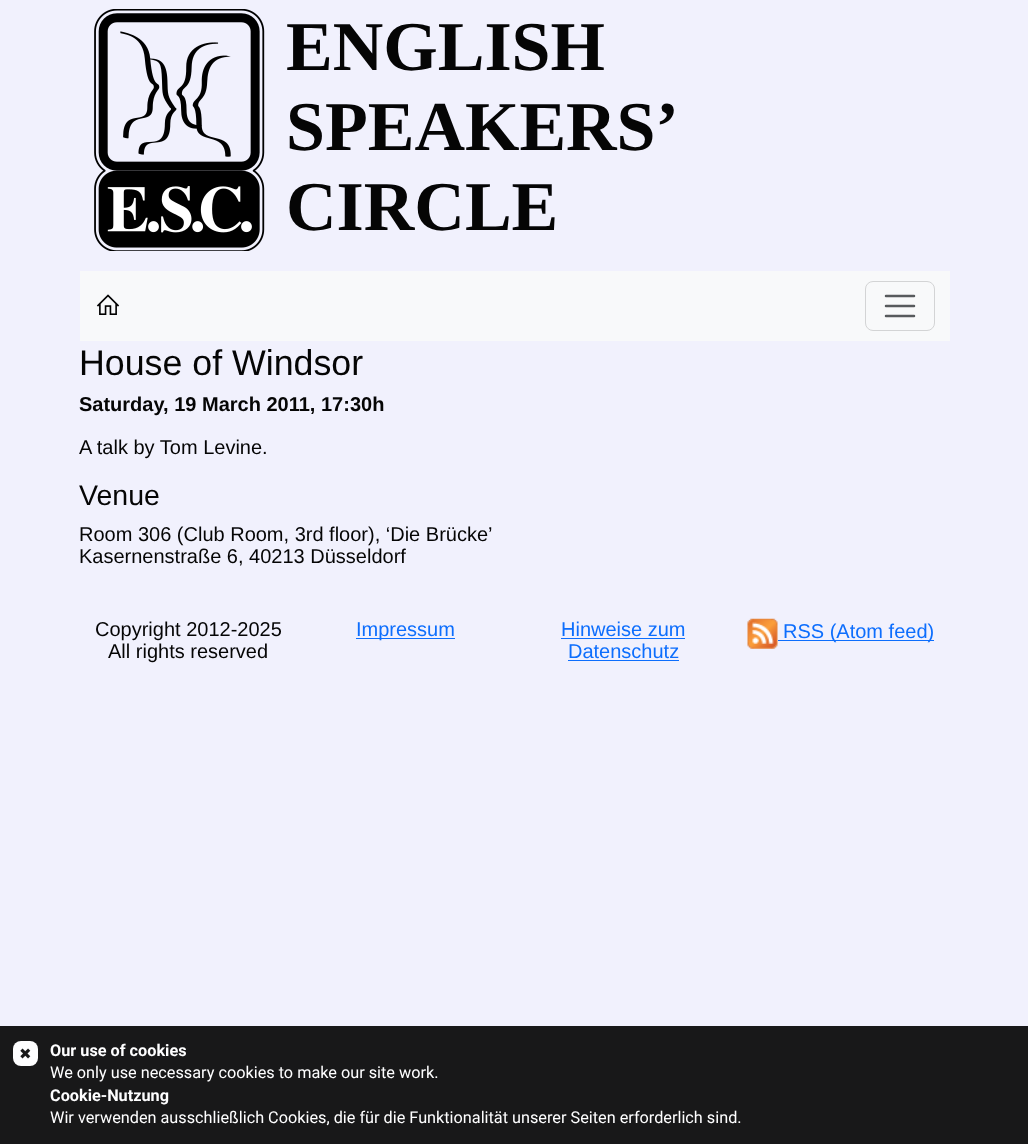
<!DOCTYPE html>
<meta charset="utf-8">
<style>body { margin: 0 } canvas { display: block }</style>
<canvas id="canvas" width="1028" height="1144"></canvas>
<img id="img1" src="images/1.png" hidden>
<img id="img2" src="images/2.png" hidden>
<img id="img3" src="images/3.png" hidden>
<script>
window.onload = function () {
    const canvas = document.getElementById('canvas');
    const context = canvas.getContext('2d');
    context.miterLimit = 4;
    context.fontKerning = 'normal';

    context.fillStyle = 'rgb(241, 241, 253)';
    context.fillRect(0, 0, 1028, 1144);
    context.drawImage(document.getElementById('img1'), 94, 9, 171, 242);
    context.fillStyle = 'rgb(248, 249, 250)';
    context.fillRect(80, 271, 870, 70);
    context.drawImage(document.getElementById('img2'), 96, 294, 24, 21);
    context.beginPath();
    context.roundRect(865.5, 281.5, 69, 49, 7.5);
    context.strokeStyle = 'rgb(211, 212, 213)';
    context.stroke();
    context.beginPath();
    context.moveTo(886, 296);
    context.lineTo(914, 296);
    context.moveTo(886, 306);
    context.lineTo(914, 306);
    context.moveTo(886, 316);
    context.lineTo(914, 316);
    context.strokeStyle = 'rgb(87, 90, 93)';
    context.lineWidth = 2.5;
    context.lineCap = 'round';
    context.stroke();
    context.fillStyle = 'rgb(13, 110, 253)';
    context.fillRect(356, 638, 99, 1);
    context.fillRect(561, 638, 124, 1);
    context.fillRect(568, 660, 111, 1);
    context.drawImage(document.getElementById('img3'), 747, 618, 31, 31);
    context.fillRect(778, 640, 156, 1);
    context.fillStyle = 'rgb(24, 24, 25)';
    context.fillRect(0, 1026, 1028, 118);
    context.fillStyle = 'rgb(254, 254, 255)';
    context.beginPath();
    context.roundRect(13, 1041, 25, 25, 8);
    context.fill();
    context.font = 'bold 70px Liberation Serif';
    context.fillStyle = 'rgb(5, 5, 5)';
    context.fillText('ENGLISH', 286, 70);
    context.fillText('SPEAKERS’', 286, 150);
    context.fillText('CIRCLE', 286, 230);
    context.font = '35.75px Liberation Sans';
    context.fillText('House of Windsor', 79, 375);
    context.font = 'bold 20px Liberation Sans';
    context.fillText('Saturday, 19 March 2011, 17:30h', 79, 411);
    context.font = '20px Liberation Sans';
    context.fillText('A talk by Tom Levine.', 79, 454);
    context.font = '28.5px Liberation Sans';
    context.fillText('Venue', 79, 505);
    context.font = '20px Liberation Sans';
    context.fillText('Room 306 (Club Room, 3rd floor), ‘Die Brücke’', 79, 541);
    context.fillText('Kasernenstraße 6, 40213 Düsseldorf', 79, 563);
    context.fillText('Copyright 2012-2025', 95, 636);
    context.fillText('All rights reserved', 108, 658);
    context.fillStyle = 'rgb(13, 110, 253)';
    context.fillText('Impressum', 356, 636);
    context.fillText('Hinweise zum', 561, 636);
    context.fillText('Datenschutz', 568, 658);
    context.fillText('RSS (Atom feed)', 783, 638);
    context.font = '15px DejaVu Sans';
    context.fillStyle = 'rgb(24, 24, 25)';
    context.fillText('✖', 19, 1059);
    context.font = 'bold 16.25px Roboto';
    context.fillStyle = 'rgb(254, 254, 255)';
    context.fillText('Our use of cookies', 50, 1056);
    context.font = '16.25px Roboto';
    context.fillText('We only use necessary cookies to make our site work.', 50, 1078);
    context.font = 'bold 16.25px Roboto';
    context.fillText('Cookie-Nutzung', 50, 1101);
    context.font = '16.25px Roboto';
    context.fillText('Wir verwenden ausschließlich Cookies, die für die Funktionalität unserer Seiten erforderlich sind.', 50, 1123);
};
</script>
